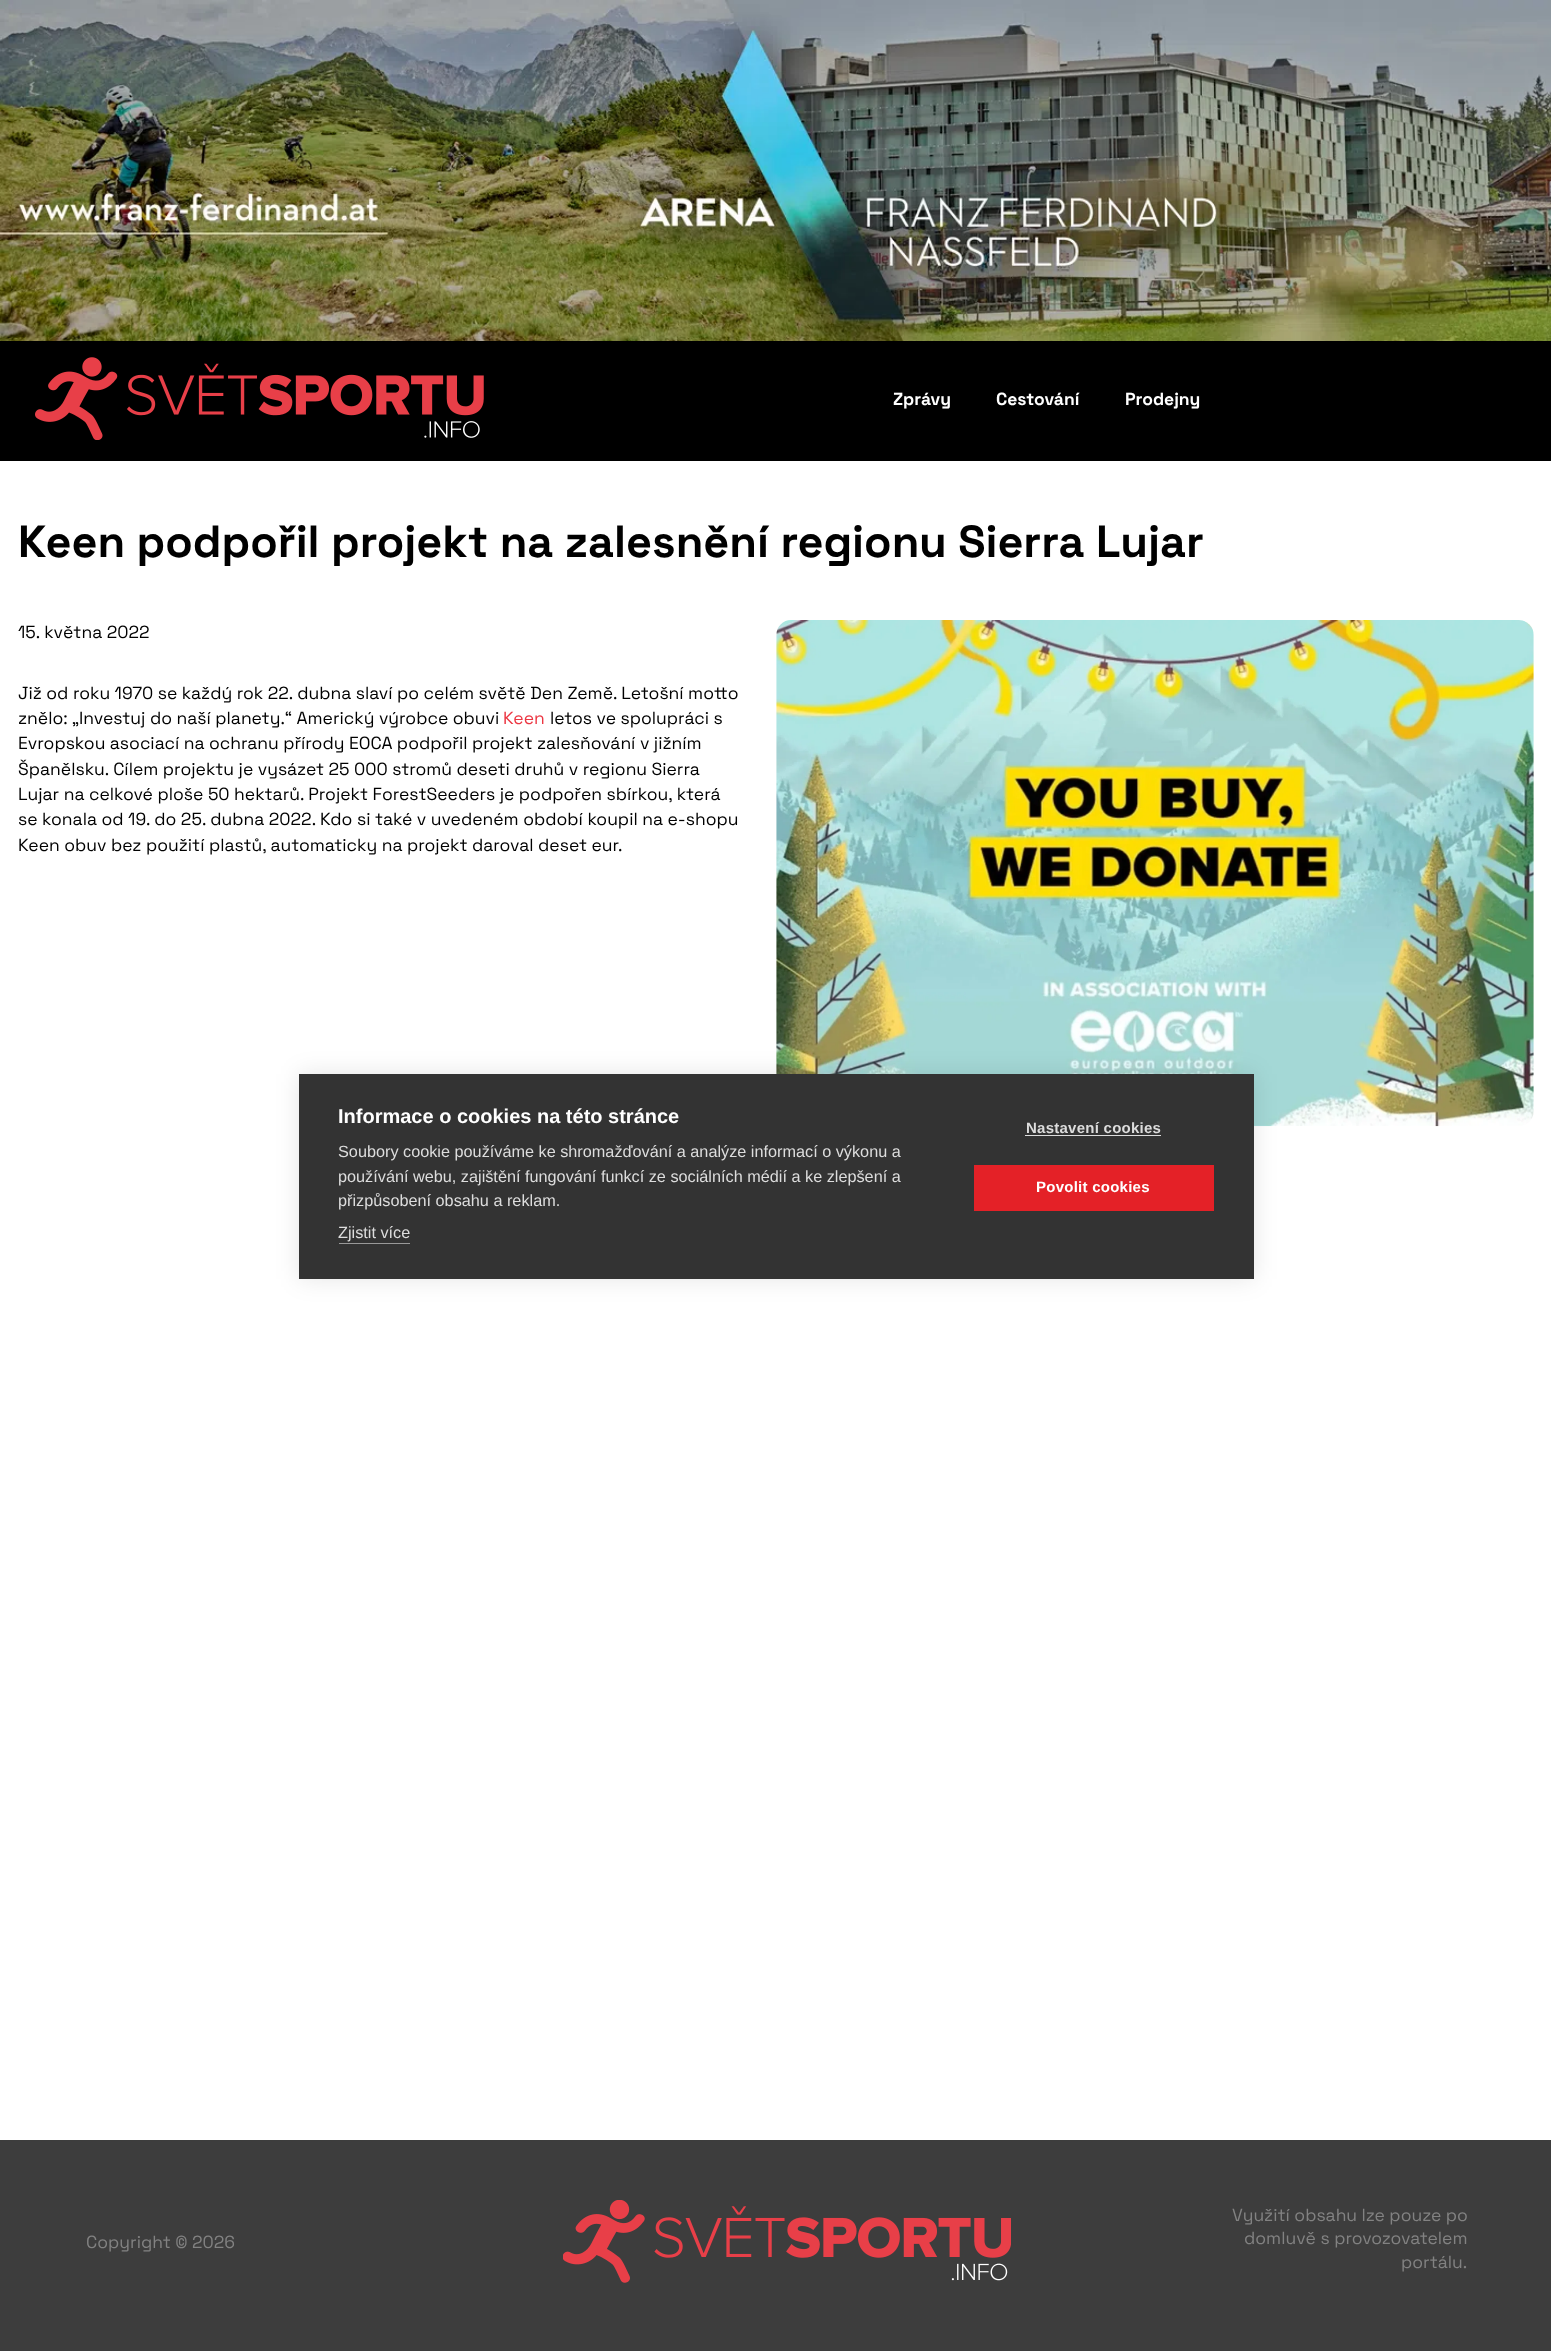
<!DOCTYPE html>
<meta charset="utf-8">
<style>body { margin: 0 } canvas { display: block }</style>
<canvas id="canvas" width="1551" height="2351"></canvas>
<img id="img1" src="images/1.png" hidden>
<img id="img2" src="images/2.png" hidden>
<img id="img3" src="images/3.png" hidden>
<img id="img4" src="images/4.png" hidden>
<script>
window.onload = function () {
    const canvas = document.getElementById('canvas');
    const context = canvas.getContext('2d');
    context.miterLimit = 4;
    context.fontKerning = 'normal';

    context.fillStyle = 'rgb(255, 255, 255)';
    context.fillRect(0, 0, 1551, 2351);
    context.drawImage(document.getElementById('img1'), 0, 0, 1551, 341);
    context.fillStyle = 'rgb(0, 0, 0)';
    context.fillRect(0, 341, 1551, 120);
    context.drawImage(document.getElementById('img2'), 35, 357, 449, 83);
    context.drawImage(document.getElementById('img3'), 776, 620, 758, 507);
    context.fillStyle = 'rgba(0, 0, 0, 0.1)';
    context.filter = 'blur(12.5px)';
    context.beginPath();
    context.rect(299, 1074, 955, 205);
    context.fill();
    context.filter = 'none';
    context.fillStyle = 'rgb(51, 51, 51)';
    context.fillRect(299, 1074, 955, 205);
    context.fillStyle = 'rgb(153, 153, 153)';
    context.fillRect(339, 1243, 71, 1);
    context.fillStyle = 'rgb(221, 221, 221)';
    context.fillRect(1025, 1135, 136, 1);
    context.fillStyle = 'rgb(228, 33, 39)';
    context.fillRect(974, 1165, 240, 46);
    context.fillStyle = 'rgb(61, 61, 61)';
    context.fillRect(0, 2140, 1551, 211);
    context.drawImage(document.getElementById('img4'), 563, 2200, 448, 83);
    context.font = 'bold 17.5px Space Grotesk';
    context.fillStyle = 'rgb(255, 255, 255)';
    context.fillText('Zprávy', 893, 405);
    context.fillText('Cestování', 996, 405);
    context.fillText('Prodejny', 1125, 405);
    context.font = 'bold 45px Space Grotesk';
    context.fillStyle = 'rgb(0, 0, 0)';
    context.fillText('Keen podpořil projekt na zalesnění regionu Sierra Lujar', 18, 557);
    context.font = '17.5px Space Grotesk';
    context.fillText('15. května 2022', 18, 638);
    context.fillText('Již od roku 1970 se každý rok 22. dubna slaví po celém světě Den Země. Letošní motto', 18, 699);
    context.fillText('znělo: „Investuj do naší planety.“ Americký výrobce obuvi', 18, 724);
    context.fillStyle = 'rgb(236, 54, 66)';
    context.fillText('Keen', 503, 724);
    context.fillStyle = 'rgb(0, 0, 0)';
    context.fillText('letos ve spolupráci s', 550, 724);
    context.fillText('Evropskou asociací na ochranu přírody EOCA podpořil projekt zalesňování v jižním', 18, 749);
    context.fillText('Španělsku. Cílem projektu je vysázet 25 000 stromů deseti druhů v regionu Sierra', 18, 775);
    context.fillText('Lujar na celkové ploše 50 hektarů. Projekt ForestSeeders je podpořen sbírkou, která', 18, 800);
    context.fillText('se konala od 19. do 25. dubna 2022. Kdo si také v uvedeném období koupil na e-shopu', 18, 825);
    context.fillText('Keen obuv bez použití plastů, automaticky na projekt daroval deset eur.', 18, 851);
    context.font = 'bold 20px Liberation Sans';
    context.fillStyle = 'rgb(255, 255, 255)';
    context.fillText('Informace o cookies na této stránce', 338, 1123);
    context.font = '16.25px Liberation Sans';
    context.fillStyle = 'rgb(221, 221, 221)';
    context.fillText('Soubory cookie používáme ke shromažďování a analýze informací o výkonu a', 338, 1157);
    context.fillText('používání webu, zajištění fungování funkcí ze sociálních médií a ke zlepšení a', 338, 1182);
    context.fillText('přizpůsobení obsahu a reklam.', 338, 1206);
    context.fillText('Zjistit více', 338, 1238);
    context.letterSpacing = '0.25px';
    context.font = 'bold 15px Liberation Sans';
    context.fillText('Nastavení cookies', 1026, 1133);
    context.fillStyle = 'rgb(255, 255, 255)';
    context.fillText('Povolit cookies', 1036, 1192);
    context.letterSpacing = '0px';
    context.font = '17.5px Space Grotesk';
    context.fillStyle = 'rgb(130, 130, 130)';
    context.fillText('Copyright © 2026', 86, 2248);
    context.fillText('Využití obsahu lze pouze po', 1232, 2221);
    context.fillText('domluvě s provozovatelem', 1244, 2244);
    context.fillText('portálu.', 1401, 2268);
};
</script>
